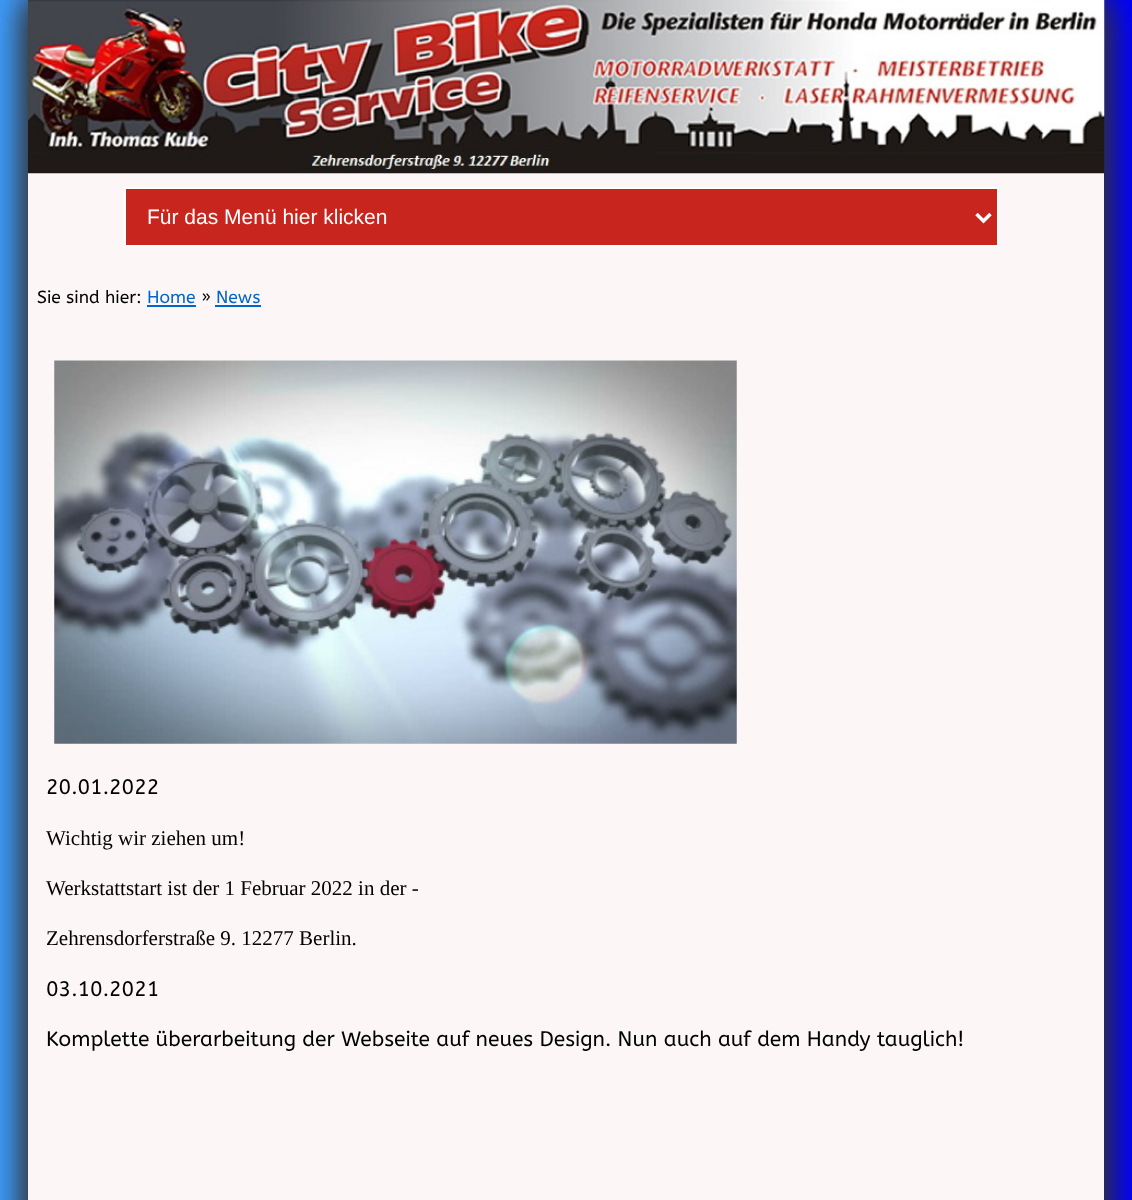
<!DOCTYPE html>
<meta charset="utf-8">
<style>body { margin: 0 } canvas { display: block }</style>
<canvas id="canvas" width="1132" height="1200"></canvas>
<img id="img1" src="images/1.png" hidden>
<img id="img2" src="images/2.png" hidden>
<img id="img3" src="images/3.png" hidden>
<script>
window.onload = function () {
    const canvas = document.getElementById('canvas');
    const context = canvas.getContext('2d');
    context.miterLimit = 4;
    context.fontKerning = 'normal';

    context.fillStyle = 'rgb(0, 0, 255)';
    context.fillRect(0, 0, 1132, 1200);
    context.drawImage(document.getElementById('img1'), 0, 0, 28, 1200);
    context.fillStyle = 'rgb(51, 51, 51)';
    context.filter = 'blur(17.5px)';
    context.beginPath();
    context.rect(30, 2, 1076, 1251);
    context.fill();
    context.filter = 'none';
    context.filter = 'blur(17.5px)';
    context.beginPath();
    context.rect(26, -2, 1077, 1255);
    context.fill();
    context.filter = 'none';
    context.fillStyle = 'rgb(252, 246, 246)';
    context.fillRect(28, 173, 1076, 1027);
    context.drawImage(document.getElementById('img2'), 28, 0, 1077, 174);
    context.fillStyle = 'rgb(200, 37, 30)';
    context.beginPath();
    context.rect(125, 188, 873, 58);
    context.fill();
    context.strokeStyle = 'rgb(255, 255, 255)';
    context.lineWidth = 2;
    context.stroke();
    context.beginPath();
    context.moveTo(976.5, 214);
    context.lineTo(983.5, 221);
    context.lineTo(990.5, 214);
    context.lineWidth = 3.5;
    context.stroke();
    context.fillStyle = 'rgb(0, 102, 204)';
    context.fillRect(147, 305, 49, 2);
    context.fillRect(215, 305, 46, 2);
    context.drawImage(document.getElementById('img3'), 54, 360, 683, 384);
    context.font = '21px Liberation Sans';
    context.fillStyle = 'rgb(255, 255, 255)';
    context.fillText('Für das Menü hier klicken', 147, 224);
    context.font = '17.5px ABeeZee';
    context.fillStyle = 'rgb(0, 0, 0)';
    context.fillText('Sie sind hier:', 37, 303);
    context.fillStyle = 'rgb(0, 102, 204)';
    context.fillText('Home', 147, 303);
    context.fillStyle = 'rgb(0, 0, 0)';
    context.fillText('»', 201, 303);
    context.fillStyle = 'rgb(0, 102, 204)';
    context.fillText('News', 216, 303);
    context.font = '21px ABeeZee';
    context.fillStyle = 'rgb(0, 0, 0)';
    context.fillText('20.01.2022', 46, 794);
    context.font = '21px Liberation Serif';
    context.fillText('Wichtig wir ziehen um!', 46, 845);
    context.fillText('Werkstattstart ist der 1 Februar 2022 in der -', 46, 895);
    context.fillText('Zehrensdorferstraße 9. 12277 Berlin.', 46, 945);
    context.font = '21px ABeeZee';
    context.fillText('03.10.2021', 46, 996);
    context.fillText('Komplette überarbeitung der Webseite auf neues Design. Nun auch auf dem Handy tauglich!', 46, 1046);
};
</script>
